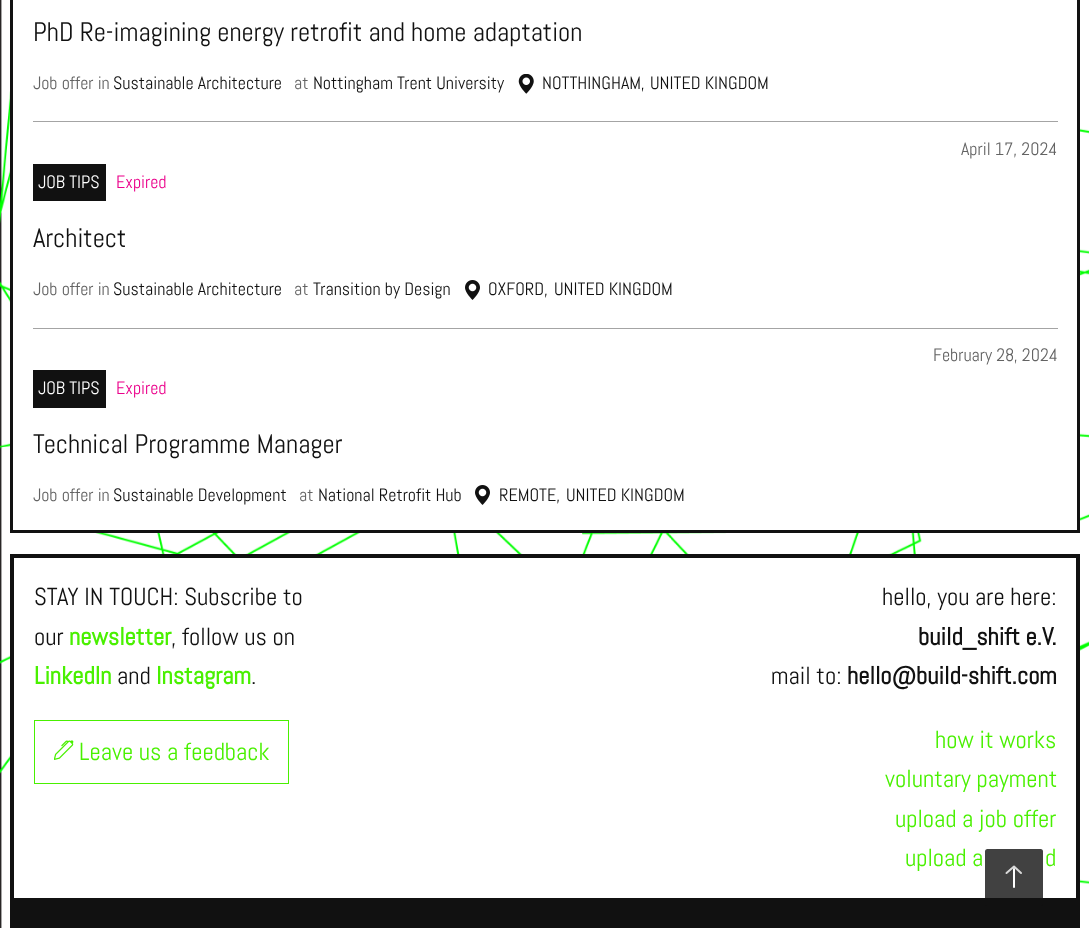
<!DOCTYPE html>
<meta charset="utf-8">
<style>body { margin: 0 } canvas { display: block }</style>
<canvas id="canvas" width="1089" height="928"></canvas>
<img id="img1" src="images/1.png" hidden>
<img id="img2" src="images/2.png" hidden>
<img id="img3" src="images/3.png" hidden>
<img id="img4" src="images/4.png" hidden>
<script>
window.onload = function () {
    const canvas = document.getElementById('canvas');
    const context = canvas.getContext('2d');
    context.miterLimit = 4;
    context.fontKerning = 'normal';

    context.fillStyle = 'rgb(255, 255, 255)';
    context.fillRect(0, 0, 1089, 928);
    context.drawImage(document.getElementById('img1'), 0, 0, 1089, 928);
    context.beginPath();
    context.rect(11.5, -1.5, 1067, 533);
    context.fill();
    context.strokeStyle = 'rgb(17, 17, 17)';
    context.lineWidth = 3;
    context.stroke();
    context.drawImage(document.getElementById('img2'), 518, 74, 16, 20);
    context.fillStyle = 'rgb(164, 164, 164)';
    context.fillRect(33, 121, 1025, 1);
    context.fillStyle = 'rgb(17, 17, 17)';
    context.fillRect(33, 164, 73, 37);
    context.drawImage(document.getElementById('img3'), 465, 280, 15, 20);
    context.fillStyle = 'rgb(164, 164, 164)';
    context.fillRect(33, 328, 1025, 1);
    context.fillStyle = 'rgb(17, 17, 17)';
    context.fillRect(33, 370, 73, 38);
    context.drawImage(document.getElementById('img3'), 475, 485, 15, 20);
    context.fillStyle = 'rgb(255, 255, 255)';
    context.fillRect(14, 558, 1062, 340);
    context.fillStyle = 'rgb(17, 17, 17)';
    context.fillRect(10, 554, 1070, 4);
    context.fillRect(1076, 554, 4, 344);
    context.fillRect(10, 554, 4, 344);
    context.strokeStyle = 'rgb(73, 240, 0)';
    context.lineWidth = 1;
    context.strokeRect(34.5, 720.5, 254, 63);
    context.drawImage(document.getElementById('img4'), 54, 740, 20, 20);
    context.fillRect(10, 898, 1070, 30);
    context.fillStyle = 'rgba(17, 17, 17, 0.8)';
    context.beginPath();
    context.roundRect(985, 849, 58, 57, 2.5);
    context.fill();
    context.beginPath();
    context.moveTo(1014, 869);
    context.lineTo(1014, 887);
    context.strokeStyle = 'rgb(255, 255, 255)';
    context.lineWidth = 2;
    context.lineCap = 'round';
    context.lineJoin = 'round';
    context.stroke();
    context.beginPath();
    context.moveTo(1021, 873);
    context.lineTo(1014, 866.5);
    context.lineTo(1006.5, 873);
    context.strokeStyle = 'rgba(255, 255, 255, 0.8)';
    context.stroke();
    context.font = '26.8px Abel';
    context.fillStyle = 'rgb(17, 17, 17)';
    context.fillText('PhD Re-imagining energy retrofit and home adaptation', 33, 41);
    context.font = '18px Abel';
    context.fillStyle = 'rgb(99, 99, 99)';
    context.fillText('Job offer in', 33, 89);
    context.fillStyle = 'rgb(17, 17, 17)';
    context.fillText('Sustainable Architecture', 113, 89);
    context.fillStyle = 'rgb(99, 99, 99)';
    context.fillText('at', 294, 89);
    context.fillStyle = 'rgb(17, 17, 17)';
    context.fillText('Nottingham Trent University', 313, 89);
    context.fillText('NOTTHINGHAM,', 542, 89);
    context.fillText('UNITED KINGDOM', 650, 89);
    context.fillStyle = 'rgb(99, 99, 99)';
    context.fillText('April 17, 2024', 961, 155);
    context.fillStyle = 'rgb(255, 255, 255)';
    context.fillText('JOB TIPS', 38, 188);
    context.fillStyle = 'rgb(235, 0, 139)';
    context.fillText('Expired', 116, 188);
    context.font = '26.8px Abel';
    context.fillStyle = 'rgb(17, 17, 17)';
    context.fillText('Architect', 33, 247);
    context.font = '18px Abel';
    context.fillStyle = 'rgb(99, 99, 99)';
    context.fillText('Job offer in', 33, 295);
    context.fillStyle = 'rgb(17, 17, 17)';
    context.fillText('Sustainable Architecture', 113, 295);
    context.fillStyle = 'rgb(99, 99, 99)';
    context.fillText('at', 294, 295);
    context.fillStyle = 'rgb(17, 17, 17)';
    context.fillText('Transition by Design', 313, 295);
    context.fillText('OXFORD', 488, 295);
    context.fillText(',', 544, 295);
    context.fillText('UNITED KINGDOM', 554, 295);
    context.fillStyle = 'rgb(99, 99, 99)';
    context.fillText('February 28, 2024', 933, 361);
    context.fillStyle = 'rgb(255, 255, 255)';
    context.fillText('JOB TIPS', 38, 394);
    context.fillStyle = 'rgb(235, 0, 139)';
    context.fillText('Expired', 116, 394);
    context.font = '26.8px Abel';
    context.fillStyle = 'rgb(17, 17, 17)';
    context.fillText('Technical Programme Manager', 33, 453);
    context.font = '18px Abel';
    context.fillStyle = 'rgb(99, 99, 99)';
    context.fillText('Job offer in', 33, 501);
    context.fillStyle = 'rgb(17, 17, 17)';
    context.fillText('Sustainable Development', 113, 501);
    context.fillStyle = 'rgb(99, 99, 99)';
    context.fillText('at', 299, 501);
    context.fillStyle = 'rgb(17, 17, 17)';
    context.fillText('National Retrofit Hub', 318, 501);
    context.fillText('REMOTE,', 499, 501);
    context.fillText('UNITED KINGDOM', 566, 501);
    context.font = '24.75px Abel';
    context.fillText('STAY IN TOUCH: Subscribe to', 34, 605);
    context.fillText('our', 34, 645);
    context.font = 'bold 24.75px Abel';
    context.fillStyle = 'rgb(73, 240, 0)';
    context.fillText('newsletter', 69, 645);
    context.font = '24.75px Abel';
    context.fillStyle = 'rgb(17, 17, 17)';
    context.fillText(', follow us on', 171, 645);
    context.font = 'bold 24.75px Abel';
    context.fillStyle = 'rgb(73, 240, 0)';
    context.fillText('LinkedIn', 34, 684);
    context.font = '24.75px Abel';
    context.fillStyle = 'rgb(17, 17, 17)';
    context.fillText('and', 117, 684);
    context.font = 'bold 24.75px Abel';
    context.fillStyle = 'rgb(73, 240, 0)';
    context.fillText('Instagram', 156, 684);
    context.font = '24.75px Abel';
    context.fillStyle = 'rgb(17, 17, 17)';
    context.fillText('.', 251, 684);
    context.fillStyle = 'rgb(73, 240, 0)';
    context.fillText('Leave us a feedback', 79, 760);
    context.fillStyle = 'rgb(17, 17, 17)';
    context.fillText('hello, you are here:', 882, 605);
    context.font = 'bold 24.75px Abel';
    context.fillText('build_shift e.V.', 918, 645);
    context.font = '24.75px Abel';
    context.fillText('mail to:', 771, 684);
    context.font = 'bold 24.75px Abel';
    context.fillText('hello@build-shift.com', 847, 684);
    context.font = '24.75px Abel';
    context.fillStyle = 'rgb(73, 240, 0)';
    context.fillText('how it works', 935, 748);
    context.fillText('voluntary payment', 885, 787);
    context.fillText('upload a job offer', 895, 827);
    context.fillText('upload a', 905, 866);
    context.fillText('d', 1045, 866);
};
</script>
